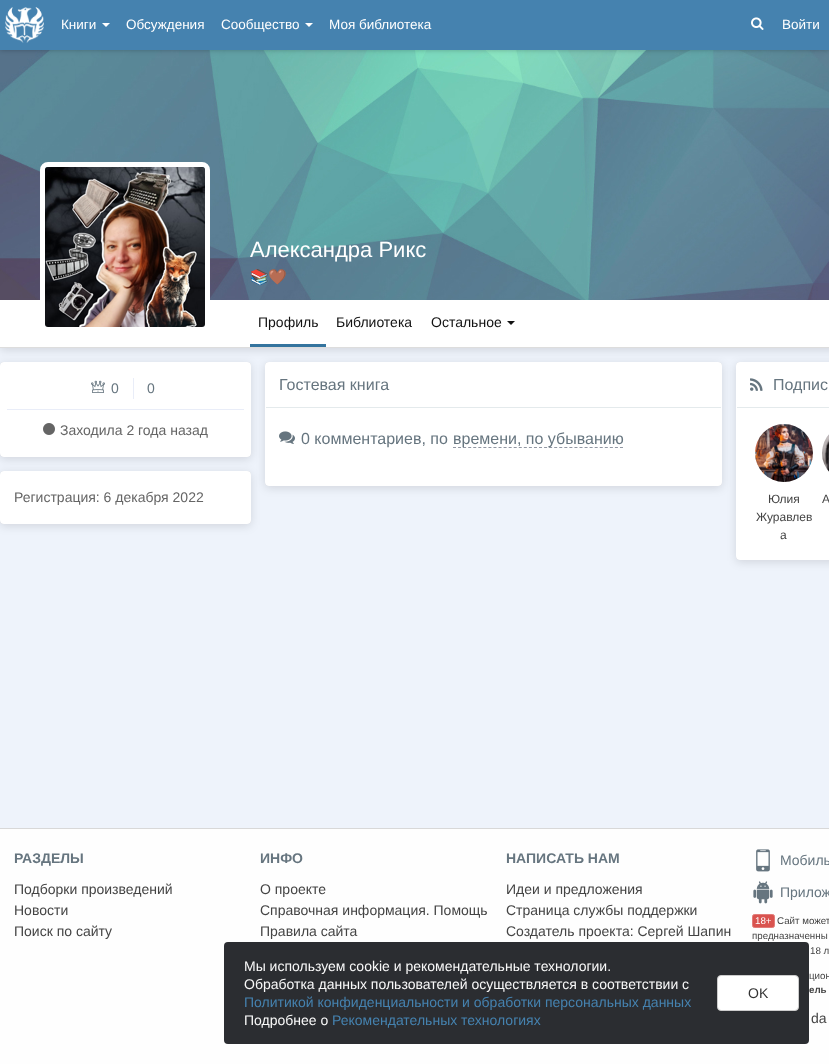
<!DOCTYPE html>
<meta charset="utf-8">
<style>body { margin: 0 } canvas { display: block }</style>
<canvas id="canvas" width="829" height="1064"></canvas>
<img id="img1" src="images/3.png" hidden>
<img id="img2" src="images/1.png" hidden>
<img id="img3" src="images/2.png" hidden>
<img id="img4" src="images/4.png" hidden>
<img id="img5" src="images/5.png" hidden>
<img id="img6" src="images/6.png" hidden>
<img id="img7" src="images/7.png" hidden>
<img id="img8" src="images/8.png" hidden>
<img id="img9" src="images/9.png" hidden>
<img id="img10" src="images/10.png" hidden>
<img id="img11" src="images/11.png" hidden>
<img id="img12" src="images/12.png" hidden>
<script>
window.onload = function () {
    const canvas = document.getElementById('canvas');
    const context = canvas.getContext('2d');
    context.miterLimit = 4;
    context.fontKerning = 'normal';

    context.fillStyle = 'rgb(238, 243, 251)';
    context.fillRect(0, 0, 829, 1064);
    context.fillStyle = 'rgba(0, 0, 0, 0.12)';
    context.filter = 'blur(5px)';
    context.beginPath();
    context.rect(0, 52, 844, 298);
    context.fill();
    context.filter = 'none';
    context.drawImage(document.getElementById('img1'), 0, 50, 829, 250);
    context.fillStyle = 'rgba(0, 0, 0, 0.25)';
    context.filter = 'blur(2.5px)';
    context.beginPath();
    context.rect(0, 0, 829, 50);
    context.fill();
    context.filter = 'none';
    context.fillStyle = 'rgb(69, 130, 175)';
    context.fillRect(0, 0, 829, 50);
    context.drawImage(document.getElementById('img2'), 5, 7, 39, 36);
    context.fillStyle = 'rgb(255, 255, 255)';
    context.beginPath();
    context.moveTo(102, 23);
    context.lineTo(110, 23);
    context.lineTo(106, 27);
    context.closePath();
    context.fill();
    context.beginPath();
    context.moveTo(305, 23);
    context.lineTo(313, 23);
    context.lineTo(309, 27);
    context.closePath();
    context.fill();
    context.drawImage(document.getElementById('img3'), 751, 17, 13, 13);
    context.fillStyle = 'rgb(221, 221, 221)';
    context.fillRect(0, 347, 829, 1);
    context.fillStyle = 'rgb(255, 255, 255)';
    context.fillRect(0, 300, 829, 47);
    context.beginPath();
    context.roundRect(42.5, 164.5, 165, 165, 5.5);
    context.strokeStyle = 'rgb(255, 255, 255)';
    context.lineWidth = 5;
    context.stroke();
    context.drawImage(document.getElementById('img4'), 45, 167, 160, 160);
    context.fillStyle = 'rgb(52, 116, 158)';
    context.fillRect(250, 344, 76, 3);
    context.fillStyle = 'rgb(18, 18, 18)';
    context.beginPath();
    context.moveTo(507, 321);
    context.lineTo(515, 321);
    context.lineTo(511, 325);
    context.closePath();
    context.fill();
    context.fillStyle = 'rgba(0, 0, 0, 0.12)';
    context.filter = 'blur(5px)';
    context.beginPath();
    context.roundRect(0, 364, 251, 95, 4);
    context.fill();
    context.filter = 'none';
    context.filter = 'blur(0.5px)';
    context.beginPath();
    context.roundRect(0, 362, 251, 95, 4);
    context.fill();
    context.filter = 'none';
    context.fillStyle = 'rgb(255, 255, 255)';
    context.beginPath();
    context.roundRect(0, 362, 251, 95, 4);
    context.fill();
    context.fillStyle = 'rgb(233, 237, 248)';
    context.fillRect(7, 409, 237, 1);
    context.drawImage(document.getElementById('img5'), 91, 380, 14, 13);
    context.fillRect(133, 378, 1, 21);
    context.drawImage(document.getElementById('img6'), 43, 423, 12, 12);
    context.fillStyle = 'rgba(0, 0, 0, 0.12)';
    context.filter = 'blur(5px)';
    context.beginPath();
    context.roundRect(0, 473, 251, 53, 4);
    context.fill();
    context.filter = 'none';
    context.filter = 'blur(0.5px)';
    context.beginPath();
    context.roundRect(0, 471, 251, 53, 4);
    context.fill();
    context.filter = 'none';
    context.fillStyle = 'rgb(255, 255, 255)';
    context.beginPath();
    context.roundRect(0, 471, 251, 53, 4);
    context.fill();
    context.fillStyle = 'rgba(0, 0, 0, 0.12)';
    context.filter = 'blur(5px)';
    context.beginPath();
    context.roundRect(265, 364, 457, 124, 4);
    context.fill();
    context.filter = 'none';
    context.filter = 'blur(0.5px)';
    context.beginPath();
    context.roundRect(265, 362, 457, 124, 4);
    context.fill();
    context.filter = 'none';
    context.fillStyle = 'rgb(255, 255, 255)';
    context.beginPath();
    context.roundRect(265, 362, 457, 124, 4);
    context.fill();
    context.fillStyle = 'rgba(0, 0, 0, 0.12)';
    context.filter = 'blur(5px)';
    context.beginPath();
    context.roundRect(736, 364, 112, 198, 4);
    context.fill();
    context.filter = 'none';
    context.fillStyle = 'rgb(228, 234, 236)';
    context.fillRect(266, 407, 455, 1);
    context.drawImage(document.getElementById('img7'), 279, 431, 16, 13);
    context.beginPath();
    context.moveTo(453, 447.5);
    context.lineTo(623, 447.5);
    context.strokeStyle = 'rgb(145, 151, 163)';
    context.lineWidth = 1;
    context.setLineDash([3, 2.06]);
    context.stroke();
    context.fillStyle = 'rgba(0, 0, 0, 0.12)';
    context.filter = 'blur(0.5px)';
    context.beginPath();
    context.roundRect(736, 362, 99, 198, 4);
    context.fill();
    context.filter = 'none';
    context.fillStyle = 'rgb(255, 255, 255)';
    context.beginPath();
    context.roundRect(736, 362, 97, 198, 4);
    context.fill();
    context.fillStyle = 'rgb(228, 234, 236)';
    context.fillRect(737, 407, 92, 1);
    context.drawImage(document.getElementById('img8'), 750, 378, 13, 13);
    context.drawImage(document.getElementById('img9'), 755, 424, 58, 58);
    context.drawImage(document.getElementById('img10'), 822, 434, 7, 38);
    context.fillStyle = 'rgb(254, 254, 254)';
    context.fillRect(0, 829, 829, 235);
    context.fillStyle = 'rgb(216, 216, 216)';
    context.fillRect(0, 828, 829, 1);
    context.drawImage(document.getElementById('img11'), 756, 849, 14, 23);
    context.drawImage(document.getElementById('img12'), 753, 881, 20, 23);
    context.fillStyle = 'rgb(217, 83, 79)';
    context.beginPath();
    context.roundRect(752.5, 914.5, 22, 13, 2);
    context.fill();
    context.strokeStyle = 'rgb(226, 124, 121)';
    context.setLineDash([]);
    context.stroke();
    context.fillStyle = 'rgb(43, 45, 49)';
    context.beginPath();
    context.roundRect(224, 942, 585, 102, 4);
    context.fill();
    context.fillStyle = 'rgb(255, 255, 255)';
    context.beginPath();
    context.roundRect(717.5, 975.5, 81, 35, 3.5);
    context.fill();
    context.strokeStyle = 'rgb(204, 204, 204)';
    context.stroke();
    context.font = '13.5px Liberation Sans';
    context.fillText('Книги', 61, 29);
    context.fillText('Обсуждения', 126, 29);
    context.fillText('Сообщество', 221, 29);
    context.fillText('Моя библиотека', 329, 29);
    context.fillText('Войти', 782, 29);
    context.font = '22px Liberation Sans';
    context.fillText('Александра Рикс', 250, 257);
    context.font = '15px Noto Color Emoji';
    context.fillText('📚🤎', 250, 282);
    context.font = '14px Liberation Sans';
    context.fillStyle = 'rgb(18, 18, 18)';
    context.fillText('Профиль', 258, 327);
    context.fillText('Библиотека', 336, 327);
    context.fillText('Остальное', 431, 327);
    context.fillStyle = 'rgb(102, 117, 127)';
    context.fillText('0', 111, 393);
    context.fillText('0', 147, 393);
    context.fillStyle = 'rgb(101, 101, 101)';
    context.fillText('Заходилa 2 года назад', 60, 435);
    context.fillText('Регистрация: 6 декабря 2022', 14, 502);
    context.font = '16px Liberation Sans';
    context.fillStyle = 'rgb(102, 117, 127)';
    context.fillText('Гостевая книга', 279, 390);
    context.fillText('0 комментариев, по', 301, 444);
    context.fillText('времени, по убыванию', 453, 444);
    context.fillText('Подпис', 773, 390);
    context.font = '12px Liberation Sans';
    context.fillStyle = 'rgb(68, 68, 68)';
    context.fillText('Юлия', 768, 503);
    context.fillText('Журавлев', 756, 521);
    context.fillText('а', 780, 539);
    context.fillText('А', 822, 503);
    context.font = 'bold 14px Liberation Sans';
    context.fillStyle = 'rgb(102, 117, 127)';
    context.fillText('РАЗДЕЛЫ', 14, 863);
    context.font = '14px Liberation Sans';
    context.fillStyle = 'rgb(68, 68, 68)';
    context.fillText('Подборки произведений', 14, 894);
    context.fillText('Новости', 14, 915);
    context.fillText('Поиск по сайту', 14, 936);
    context.font = 'bold 14px Liberation Sans';
    context.fillStyle = 'rgb(102, 117, 127)';
    context.fillText('ИНФО', 260, 863);
    context.font = '14px Liberation Sans';
    context.fillStyle = 'rgb(68, 68, 68)';
    context.fillText('О проекте', 260, 894);
    context.fillText('Справочная информация. Помощь', 260, 915);
    context.fillText('Правила сайта', 260, 936);
    context.font = 'bold 14px Liberation Sans';
    context.fillStyle = 'rgb(102, 117, 127)';
    context.fillText('НАПИСАТЬ НАМ', 506, 863);
    context.font = '14px Liberation Sans';
    context.fillStyle = 'rgb(68, 68, 68)';
    context.fillText('Идеи и предложения', 506, 894);
    context.fillText('Страница службы поддержки', 506, 915);
    context.fillText('Создатель проекта: Сергей Шапин', 506, 936);
    context.fillStyle = 'rgb(102, 117, 127)';
    context.fillText('Мобиль', 780, 865);
    context.fillText('Прилож', 780, 897);
    context.font = '9.75px Liberation Sans';
    context.fillStyle = 'rgb(255, 255, 255)';
    context.fillText('18+', 755, 924);
    context.fillStyle = 'rgb(68, 68, 68)';
    context.fillText('Сайт может', 777, 924);
    context.fillText('предназначенны', 752, 939);
    context.fillText('18 л', 810, 954);
    context.fillText('цион', 809, 979);
    context.font = 'bold 9.75px Liberation Sans';
    context.fillText('ель', 809, 993);
    context.font = '14px Liberation Sans';
    context.fillText('da', 811, 1023);
    context.fillStyle = 'rgb(249, 249, 249)';
    context.fillText('Мы используем cookie и рекомендательные технологии.', 244, 971);
    context.fillText('Обработка данных пользователей осуществляется в соответствии с', 244, 989);
    context.fillStyle = 'rgb(69, 130, 175)';
    context.fillText('Политикой конфиденциальности и обработки персональных данных', 244, 1007);
    context.fillStyle = 'rgb(249, 249, 249)';
    context.fillText('Подробнее о', 244, 1025);
    context.fillStyle = 'rgb(69, 130, 175)';
    context.fillText('Рекомендательных технологиях', 332, 1025);
    context.fillStyle = 'rgb(51, 51, 51)';
    context.fillText('OK', 748, 998);
};
</script>
